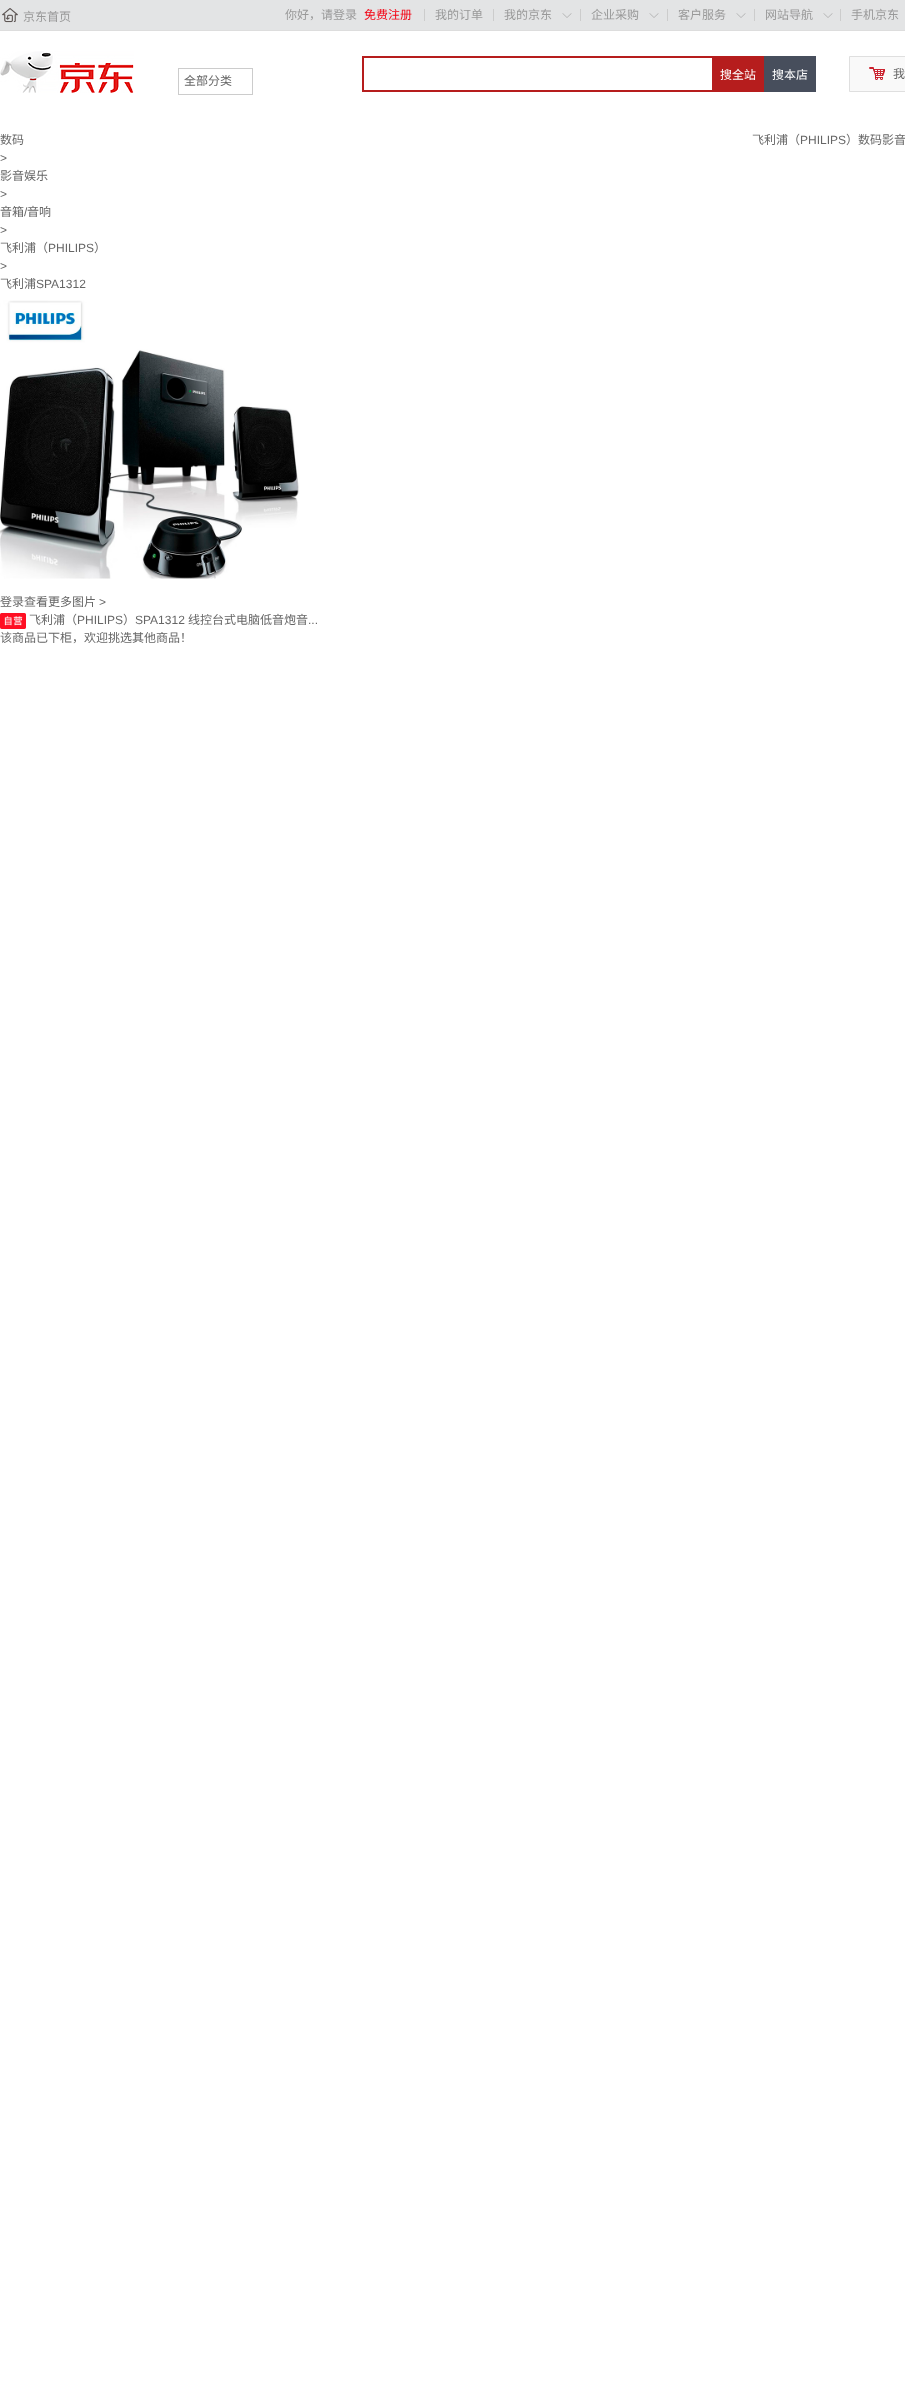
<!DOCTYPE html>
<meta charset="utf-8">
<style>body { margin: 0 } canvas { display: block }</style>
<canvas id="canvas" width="905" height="2401"></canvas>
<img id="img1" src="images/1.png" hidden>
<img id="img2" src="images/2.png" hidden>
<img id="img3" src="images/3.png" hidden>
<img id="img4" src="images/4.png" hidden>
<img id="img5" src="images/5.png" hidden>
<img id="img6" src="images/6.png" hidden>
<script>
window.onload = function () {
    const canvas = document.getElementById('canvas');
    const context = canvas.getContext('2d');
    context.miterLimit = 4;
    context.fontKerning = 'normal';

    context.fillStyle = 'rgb(255, 255, 255)';
    context.fillRect(0, 0, 905, 2401);
    context.fillStyle = 'rgb(227, 228, 229)';
    context.fillRect(0, 0, 905, 30);
    context.fillStyle = 'rgb(221, 221, 221)';
    context.fillRect(0, 30, 905, 1);
    context.drawImage(document.getElementById('img1'), 2, 8, 16, 15);
    context.fillStyle = 'rgb(204, 204, 204)';
    context.fillRect(424, 9, 1, 12);
    context.fillRect(493, 9, 1, 12);
    context.drawImage(document.getElementById('img2'), 562, 13, 10, 5);
    context.fillRect(580, 9, 1, 12);
    context.drawImage(document.getElementById('img2'), 649, 13, 10, 5);
    context.fillRect(667, 9, 1, 12);
    context.drawImage(document.getElementById('img2'), 736, 13, 10, 5);
    context.fillRect(754, 9, 1, 12);
    context.drawImage(document.getElementById('img2'), 823, 13, 10, 5);
    context.fillRect(840, 9, 1, 12);
    context.drawImage(document.getElementById('img3'), 0, 51, 134, 42);
    context.strokeStyle = 'rgb(204, 204, 204)';
    context.strokeRect(178.5, 68.5, 74, 26);
    context.fillStyle = 'rgb(182, 29, 29)';
    context.fillRect(362, 56, 350, 2);
    context.fillRect(362, 90, 350, 2);
    context.fillRect(362, 56, 2, 36);
    context.fillRect(712, 56, 52, 36);
    context.fillStyle = 'rgb(71, 78, 92)';
    context.fillRect(764, 56, 52, 36);
    context.fillStyle = 'rgb(249, 249, 249)';
    context.beginPath();
    context.rect(849.5, 56.5, 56, 35);
    context.fill();
    context.strokeStyle = 'rgb(223, 223, 223)';
    context.stroke();
    context.drawImage(document.getElementById('img4'), 869, 67, 16, 13);
    context.drawImage(document.getElementById('img5'), 0, 300, 300, 279);
    context.drawImage(document.getElementById('img6'), 0, 613, 26, 16);
    context.font = '12px Noto Sans CJK SC';
    context.fillStyle = 'rgb(153, 153, 153)';
    context.fillText('京东首页', 23, 21);
    context.fillText('你好，请登录', 285, 19);
    context.fillStyle = 'rgb(243, 2, 19)';
    context.fillText('免费注册', 364, 19);
    context.fillStyle = 'rgb(153, 153, 153)';
    context.fillText('我的订单', 435, 19);
    context.fillText('我的京东', 504, 19);
    context.fillText('企业采购', 591, 19);
    context.fillText('客户服务', 678, 19);
    context.fillText('网站导航', 765, 19);
    context.fillText('手机京东', 851, 19);
    context.fillStyle = 'rgb(102, 102, 102)';
    context.fillText('全部分类', 184, 85);
    context.fillStyle = 'rgb(255, 255, 255)';
    context.fillText('搜全站', 720, 79);
    context.fillText('搜本店', 772, 79);
    context.fillStyle = 'rgb(102, 102, 102)';
    context.fillText('我', 893, 78);
    context.fillText('数码', 0, 144);
    context.font = '12px Liberation Sans';
    context.fillText('>', 0, 162);
    context.font = '12px Noto Sans CJK SC';
    context.fillText('影音娱乐', 0, 180);
    context.font = '12px Liberation Sans';
    context.fillText('>', 0, 198);
    context.font = '12px Noto Sans CJK SC';
    context.fillText('音箱', 0, 216);
    context.font = '12px Liberation Sans';
    context.fillText('/', 24, 216);
    context.font = '12px Noto Sans CJK SC';
    context.fillText('音响', 27, 216);
    context.font = '12px Liberation Sans';
    context.fillText('>', 0, 234);
    context.font = '12px Noto Sans CJK SC';
    context.fillText('飞利浦（', 0, 252);
    context.font = '12px Liberation Sans';
    context.fillText('PHILIPS', 48, 252);
    context.font = '12px Noto Sans CJK SC';
    context.fillText('）', 94, 252);
    context.font = '12px Liberation Sans';
    context.fillText('>', 0, 270);
    context.font = '12px Noto Sans CJK SC';
    context.fillText('飞利浦', 0, 288);
    context.font = '12px Liberation Sans';
    context.fillText('SPA1312', 36, 288);
    context.font = '12px Noto Sans CJK SC';
    context.fillText('飞利浦（', 752, 144);
    context.font = '12px Liberation Sans';
    context.fillText('PHILIPS', 800, 144);
    context.font = '12px Noto Sans CJK SC';
    context.fillText('）数码影音', 846, 144);
    context.fillText('登录查看更多图片', 0, 606);
    context.font = '12px Liberation Sans';
    context.fillText('>', 99, 606);
    context.font = '12px Noto Sans CJK SC';
    context.fillText('飞利浦（', 29, 624);
    context.font = '12px Liberation Sans';
    context.fillText('PHILIPS', 77, 624);
    context.font = '12px Noto Sans CJK SC';
    context.fillText('）', 123, 624);
    context.font = '12px Liberation Sans';
    context.fillText('SPA1312', 135, 624);
    context.font = '12px Noto Sans CJK SC';
    context.fillText('线控台式电脑低音炮音', 188, 624);
    context.font = '12px Liberation Sans';
    context.fillText('...', 308, 624);
    context.font = '12px Noto Sans CJK SC';
    context.fillText('该商品已下柜，欢迎挑选其他商品！', 0, 642);
};
</script>
